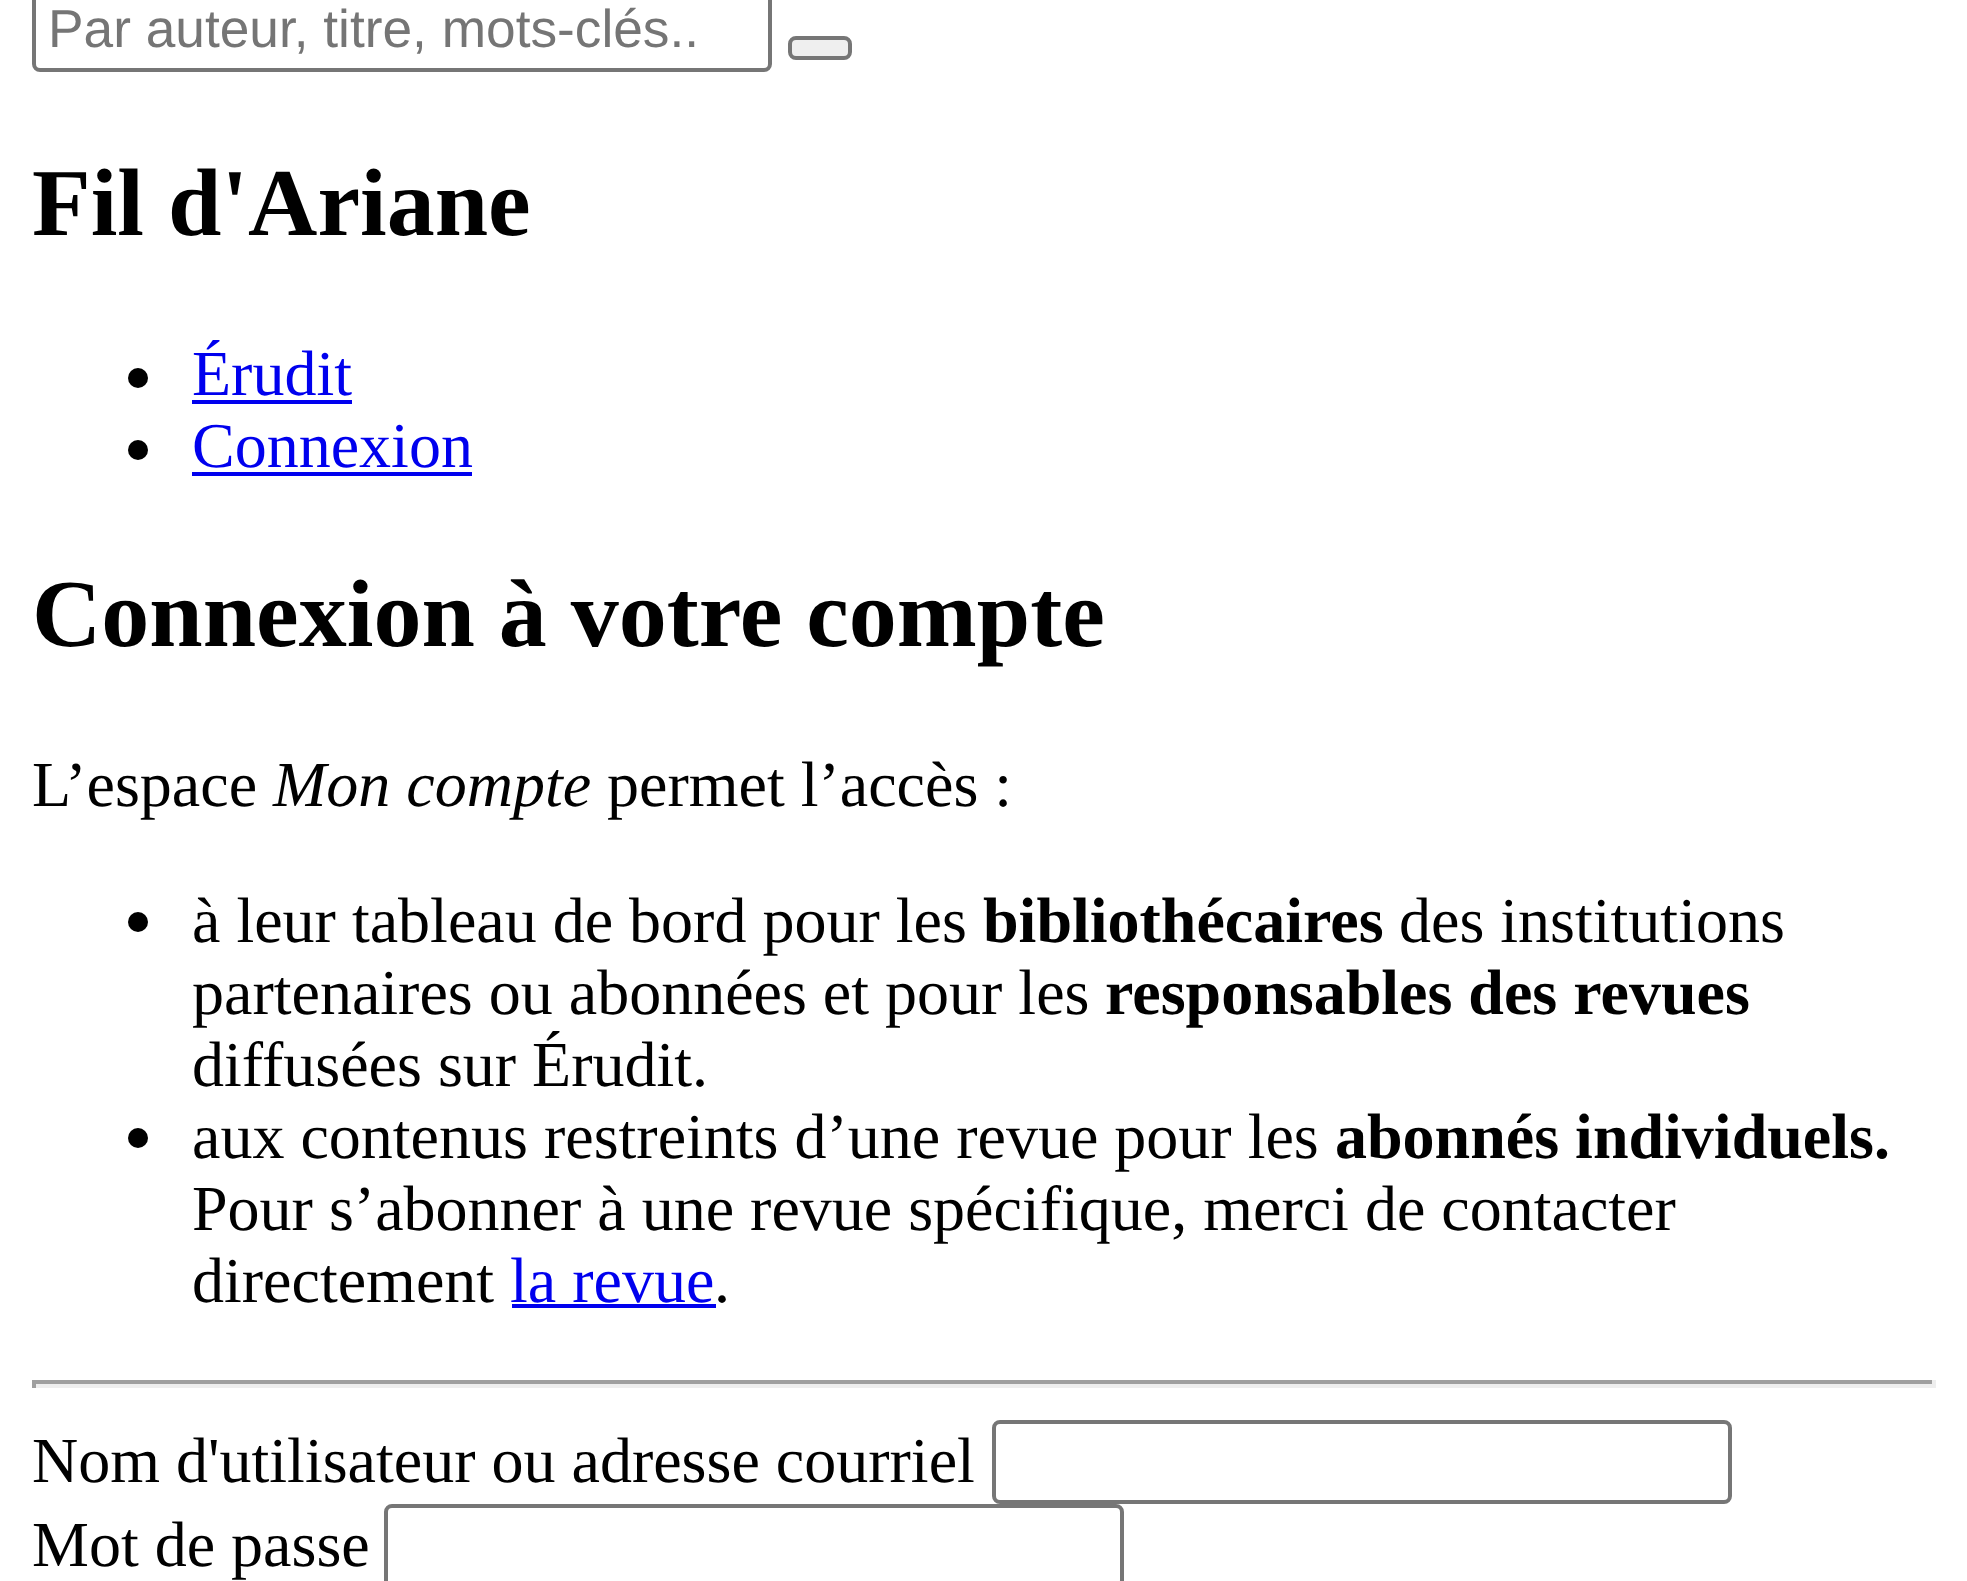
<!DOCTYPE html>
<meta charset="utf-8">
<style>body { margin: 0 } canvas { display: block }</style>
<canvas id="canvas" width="1967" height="1581"></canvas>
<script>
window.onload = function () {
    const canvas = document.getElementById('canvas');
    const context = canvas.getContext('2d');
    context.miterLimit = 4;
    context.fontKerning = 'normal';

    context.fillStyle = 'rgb(255, 255, 255)';
    context.fillRect(0, 0, 1967, 1581);
    context.beginPath();
    context.roundRect(34, -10, 736, 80, 6);
    context.strokeStyle = 'rgb(118, 118, 118)';
    context.lineWidth = 4;
    context.stroke();
    context.fillStyle = 'rgb(239, 239, 239)';
    context.beginPath();
    context.roundRect(790, 38, 60, 20, 6);
    context.fill();
    context.stroke();
    context.fillStyle = 'rgb(0, 0, 0)';
    context.beginPath();
    context.arc(138, 378, 10, 0, 2 * Math.PI);
    context.fill();
    context.fillStyle = 'rgb(0, 0, 238)';
    context.fillRect(192, 400, 160, 4);
    context.fillStyle = 'rgb(0, 0, 0)';
    context.beginPath();
    context.arc(138, 450, 10, 0, 2 * Math.PI);
    context.fill();
    context.fillStyle = 'rgb(0, 0, 238)';
    context.fillRect(192, 472, 280, 4);
    context.fillStyle = 'rgb(0, 0, 0)';
    context.beginPath();
    context.arc(138, 922, 10, 0, 2 * Math.PI);
    context.fill();
    context.beginPath();
    context.arc(138, 1138, 10, 0, 2 * Math.PI);
    context.fill();
    context.fillStyle = 'rgb(0, 0, 238)';
    context.fillRect(512, 1304, 204, 4);
    context.fillStyle = 'rgb(159, 159, 159)';
    context.fillRect(32, 1380, 1904, 4);
    context.fillStyle = 'rgb(238, 238, 238)';
    context.fillRect(1932, 1380, 4, 8);
    context.fillRect(32, 1384, 1904, 4);
    context.fillStyle = 'rgb(159, 159, 159)';
    context.fillRect(32, 1380, 4, 8);
    context.beginPath();
    context.roundRect(994, 1422, 736, 80, 6);
    context.stroke();
    context.beginPath();
    context.roundRect(386, 1506, 736, 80, 6);
    context.stroke();
    context.font = '53.25px Liberation Sans';
    context.fillStyle = 'rgb(117, 117, 117)';
    context.fillText('Par auteur, titre, mots-clés..', 48, 47);
    context.font = 'bold 96px Liberation Serif';
    context.fillStyle = 'rgb(0, 0, 0)';
    context.fillText('Fil d\'Ariane', 32, 235);
    context.font = '64px Liberation Serif';
    context.fillStyle = 'rgb(0, 0, 238)';
    context.fillText('Érudit', 192, 395);
    context.fillText('Connexion', 192, 467);
    context.font = 'bold 96px Liberation Serif';
    context.fillStyle = 'rgb(0, 0, 0)';
    context.fillText('Connexion à votre compte', 32, 646);
    context.font = '64px Liberation Serif';
    context.fillText('L’espace', 32, 806);
    context.font = 'italic 64px Liberation Serif';
    context.fillText('Mon compte', 273, 806);
    context.font = '64px Liberation Serif';
    context.fillText('permet l’accès :', 607, 806);
    context.fillText('à leur tableau de bord pour les', 192, 942);
    context.font = 'bold 64px Liberation Serif';
    context.fillText('bibliothécaires', 983, 942);
    context.font = '64px Liberation Serif';
    context.fillText('des institutions', 1399, 942);
    context.fillText('partenaires ou abonnées et pour les', 192, 1014);
    context.font = 'bold 64px Liberation Serif';
    context.fillText('responsables des revues', 1105, 1014);
    context.font = '64px Liberation Serif';
    context.fillText('diffusées sur Érudit.', 192, 1086);
    context.fillText('aux contenus restreints d’une revue pour les', 192, 1158);
    context.font = 'bold 64px Liberation Serif';
    context.fillText('abonnés individuels.', 1335, 1158);
    context.font = '64px Liberation Serif';
    context.fillText('Pour s’abonner à une revue spécifique, merci de contacter', 192, 1230);
    context.fillText('directement', 192, 1302);
    context.fillStyle = 'rgb(0, 0, 238)';
    context.fillText('la revue', 510, 1302);
    context.fillStyle = 'rgb(0, 0, 0)';
    context.fillText('.', 714, 1302);
    context.fillText('Nom d\'utilisateur ou adresse courriel', 32, 1482);
    context.fillText('Mot de passe', 32, 1566);
};
</script>
